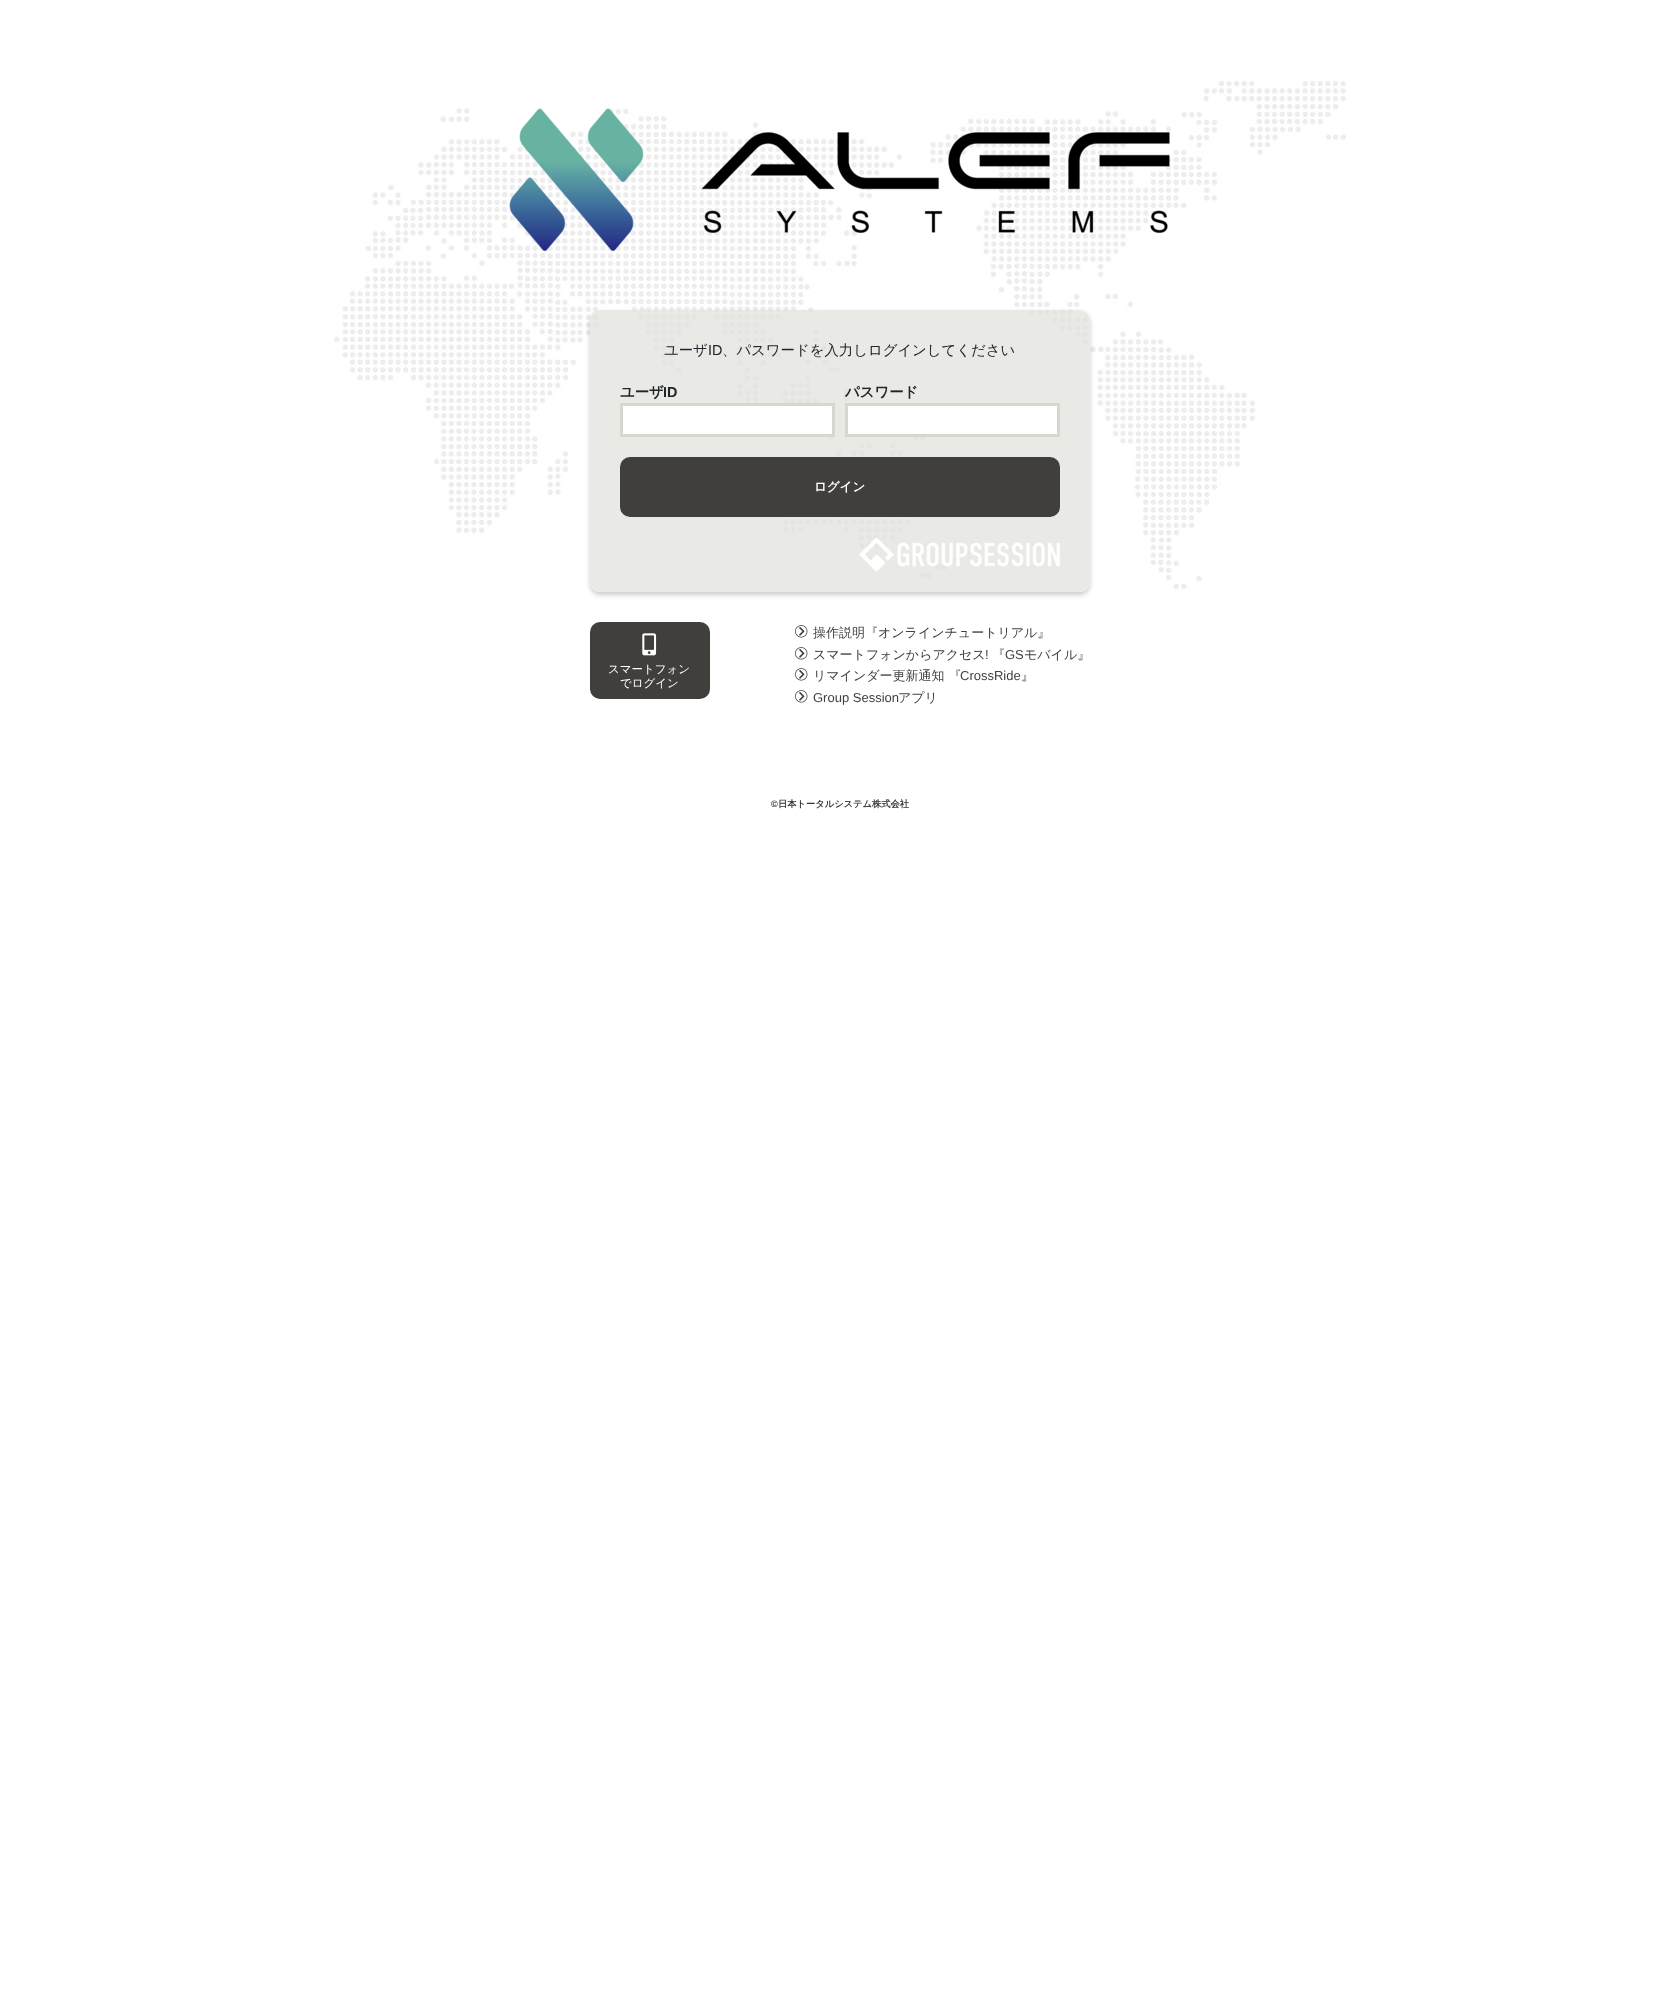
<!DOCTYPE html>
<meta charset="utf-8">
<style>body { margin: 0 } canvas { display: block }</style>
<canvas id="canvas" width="1679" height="2004"></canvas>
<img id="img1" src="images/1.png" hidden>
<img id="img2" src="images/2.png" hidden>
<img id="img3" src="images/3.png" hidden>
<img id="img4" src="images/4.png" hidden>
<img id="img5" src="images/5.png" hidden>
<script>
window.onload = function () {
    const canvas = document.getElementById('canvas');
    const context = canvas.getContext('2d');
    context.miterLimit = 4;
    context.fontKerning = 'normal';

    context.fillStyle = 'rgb(255, 255, 255)';
    context.fillRect(0, 0, 1679, 2004);
    context.drawImage(document.getElementById('img1'), 334, 81, 1012, 508);
    context.drawImage(document.getElementById('img2'), 509, 108, 661, 144);
    context.save();
    context.beginPath();
    context.moveTo(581, 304);
    context.lineTo(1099, 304);
    context.lineTo(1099, 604);
    context.lineTo(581, 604);
    context.closePath();
    context.moveTo(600, 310);
    context.lineTo(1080, 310);
    context.bezierCurveTo(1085.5, 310, 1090, 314.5, 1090, 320);
    context.lineTo(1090, 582);
    context.bezierCurveTo(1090, 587.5, 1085.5, 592, 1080, 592);
    context.lineTo(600, 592);
    context.bezierCurveTo(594.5, 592, 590, 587.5, 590, 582);
    context.lineTo(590, 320);
    context.bezierCurveTo(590, 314.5, 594.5, 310, 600, 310);
    context.closePath();
    context.clip('evenodd');
    context.fillStyle = 'rgba(0, 0, 0, 0.2)';
    context.filter = 'blur(2.5px)';
    context.beginPath();
    context.roundRect(590, 313, 500, 282, 10);
    context.fill();
    context.filter = 'none';
    context.restore();
    context.fillStyle = 'rgba(225, 225, 220, 0.72)';
    context.beginPath();
    context.roundRect(590, 310, 500, 282, 10);
    context.fill();
    context.fillStyle = 'rgb(255, 255, 255)';
    context.beginPath();
    context.rect(621.5, 404.5, 212, 31);
    context.fill();
    context.strokeStyle = 'rgb(215, 215, 207)';
    context.lineWidth = 3;
    context.stroke();
    context.beginPath();
    context.rect(846.5, 404.5, 212, 31);
    context.fill();
    context.stroke();
    context.fillStyle = 'rgb(64, 63, 60)';
    context.beginPath();
    context.roundRect(620, 457, 440, 60, 10);
    context.fill();
    context.drawImage(document.getElementById('img3'), 859, 537, 201, 35);
    context.beginPath();
    context.roundRect(590, 622, 120, 77, 10);
    context.fill();
    context.drawImage(document.getElementById('img4'), 642, 633, 15, 23);
    context.drawImage(document.getElementById('img5'), 795, 625, 13, 13);
    context.drawImage(document.getElementById('img5'), 795, 647, 13, 13);
    context.drawImage(document.getElementById('img5'), 795, 668, 13, 13);
    context.drawImage(document.getElementById('img5'), 795, 690, 13, 13);
    context.font = '500 14.4px WenQuanYi Zen Hei';
    context.fillStyle = 'rgb(33, 37, 41)';
    context.fillText('ユーザ', 664, 355);
    context.font = '14.4px Liberation Sans';
    context.fillText('ID', 708, 355);
    context.font = '500 14.4px WenQuanYi Zen Hei';
    context.fillText('、パスワードを入力しログインしてください', 722, 355);
    context.font = 'bold 14.4px WenQuanYi Zen Hei';
    context.fillText('ユーザ', 620, 397);
    context.font = 'bold 14.4px Liberation Sans';
    context.fillText('ID', 663, 397);
    context.font = 'bold 14.4px WenQuanYi Zen Hei';
    context.fillText('パスワード', 845, 397);
    context.font = 'bold 12.5px WenQuanYi Zen Hei';
    context.fillStyle = 'rgb(255, 255, 255)';
    context.fillText('ログイン', 814, 491);
    context.font = '500 11.5px WenQuanYi Zen Hei';
    context.fillText('スマートフォン', 608, 673);
    context.fillText('でログイン', 620, 687);
    context.font = '500 13px WenQuanYi Zen Hei';
    context.fillStyle = 'rgb(64, 63, 60)';
    context.fillText('操作説明『オンラインチュートリアル』', 813, 637);
    context.fillText('スマートフォンからアクセス', 813, 659);
    context.font = '13px Liberation Sans';
    context.fillText('!', 985, 659);
    context.font = '500 13px WenQuanYi Zen Hei';
    context.fillText('『', 992, 659);
    context.font = '13px Liberation Sans';
    context.fillText('GS', 1005, 659);
    context.font = '500 13px WenQuanYi Zen Hei';
    context.fillText('モバイル』', 1024, 659);
    context.fillText('リマインダー更新通知 『', 813, 680);
    context.font = '13px Liberation Sans';
    context.fillText('CrossRide', 960, 680);
    context.font = '500 13px WenQuanYi Zen Hei';
    context.fillText('』', 1021, 680);
    context.font = '13px Liberation Sans';
    context.fillText('Group Session', 813, 702);
    context.font = '500 13px WenQuanYi Zen Hei';
    context.fillText('アプリ', 898, 702);
    context.font = 'bold 9.25px Liberation Sans';
    context.fillStyle = 'rgb(51, 51, 51)';
    context.fillText('©', 771, 807);
    context.font = 'bold 9.25px WenQuanYi Zen Hei';
    context.fillText('日本トータルシステム株式会社', 778, 807);
};
</script>
